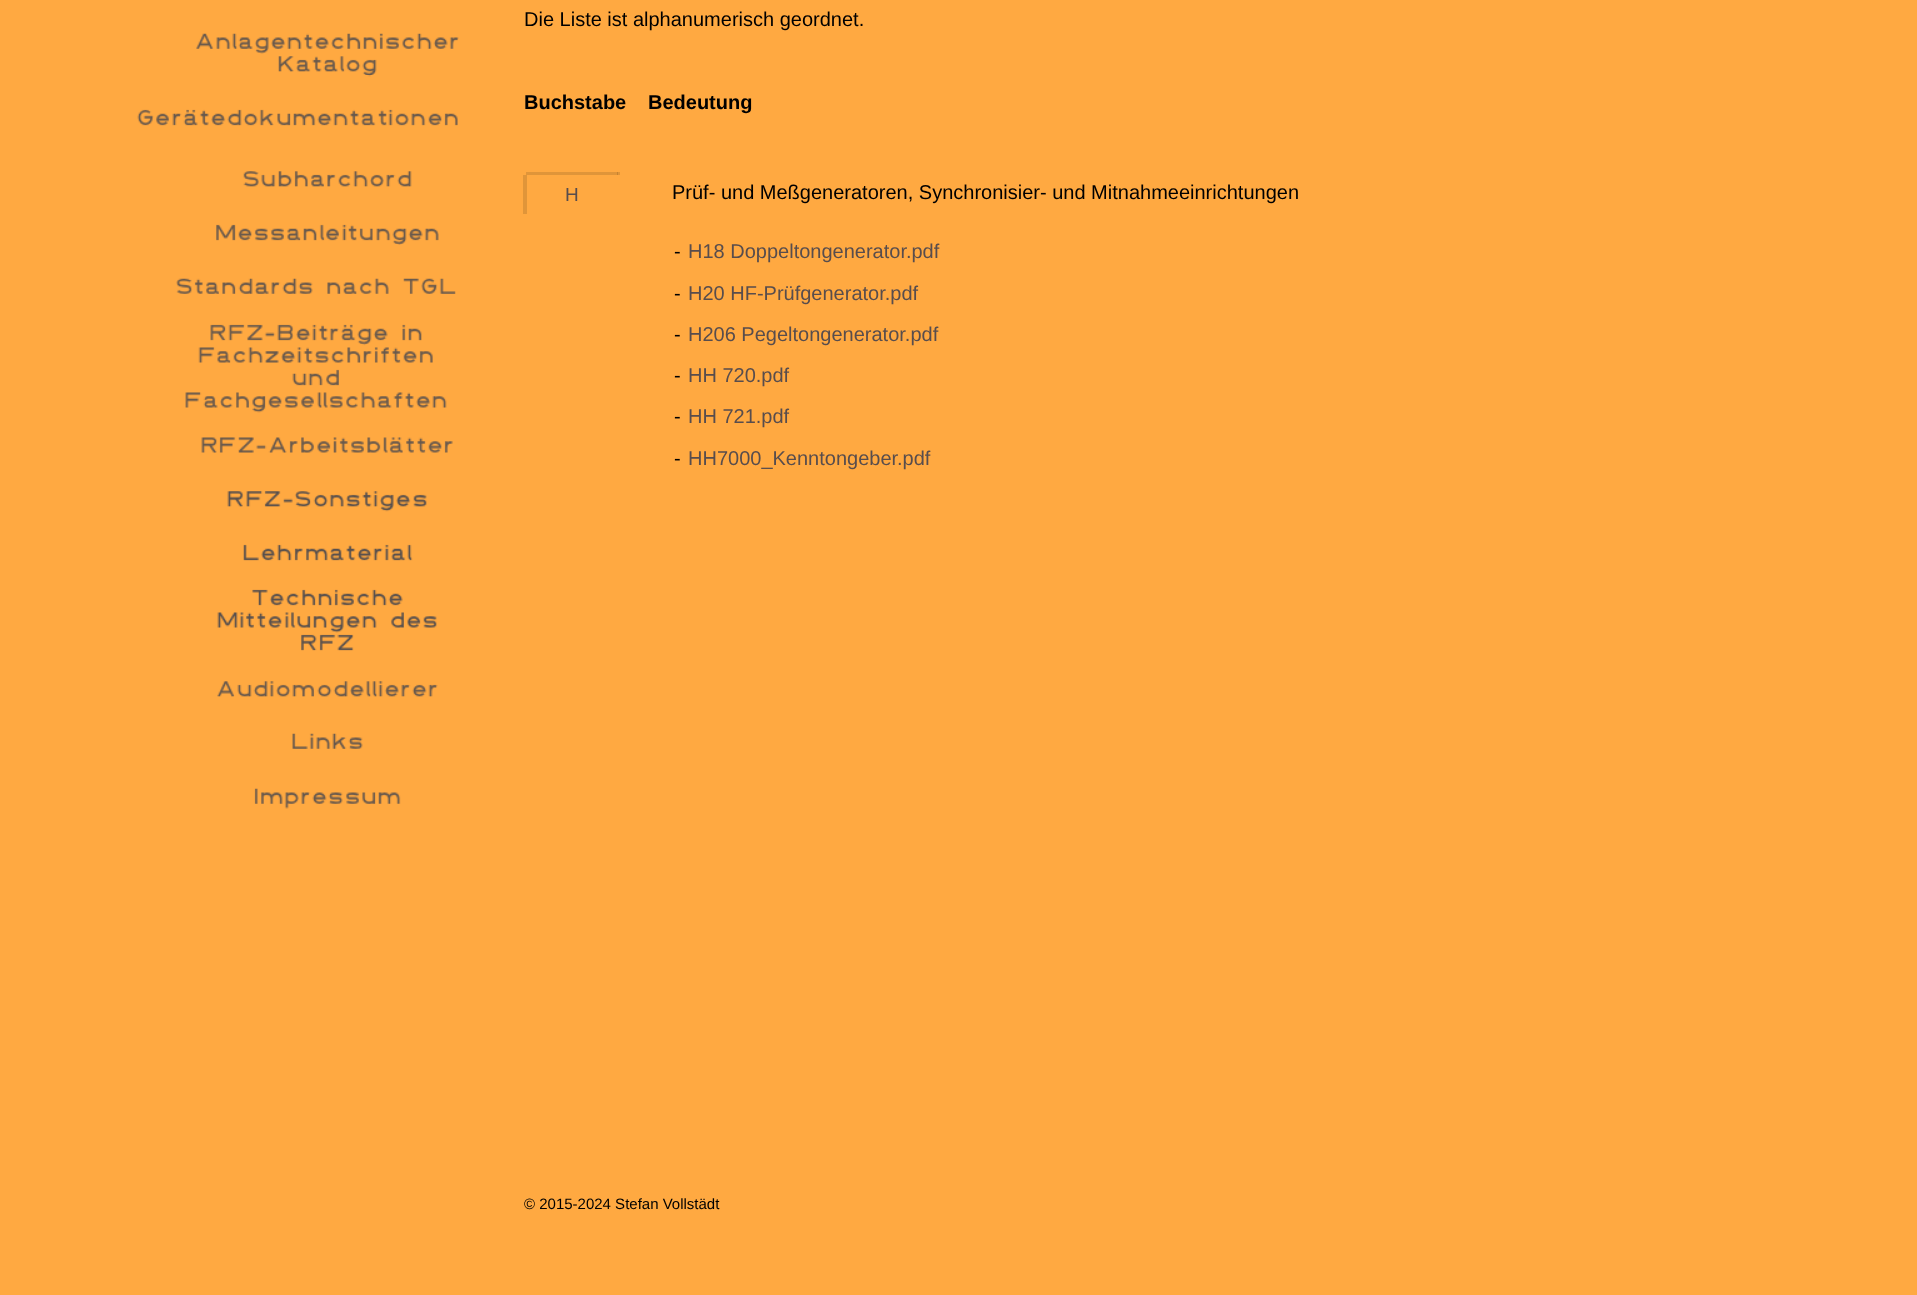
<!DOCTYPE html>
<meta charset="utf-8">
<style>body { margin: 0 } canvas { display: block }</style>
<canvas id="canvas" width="1917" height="1295"></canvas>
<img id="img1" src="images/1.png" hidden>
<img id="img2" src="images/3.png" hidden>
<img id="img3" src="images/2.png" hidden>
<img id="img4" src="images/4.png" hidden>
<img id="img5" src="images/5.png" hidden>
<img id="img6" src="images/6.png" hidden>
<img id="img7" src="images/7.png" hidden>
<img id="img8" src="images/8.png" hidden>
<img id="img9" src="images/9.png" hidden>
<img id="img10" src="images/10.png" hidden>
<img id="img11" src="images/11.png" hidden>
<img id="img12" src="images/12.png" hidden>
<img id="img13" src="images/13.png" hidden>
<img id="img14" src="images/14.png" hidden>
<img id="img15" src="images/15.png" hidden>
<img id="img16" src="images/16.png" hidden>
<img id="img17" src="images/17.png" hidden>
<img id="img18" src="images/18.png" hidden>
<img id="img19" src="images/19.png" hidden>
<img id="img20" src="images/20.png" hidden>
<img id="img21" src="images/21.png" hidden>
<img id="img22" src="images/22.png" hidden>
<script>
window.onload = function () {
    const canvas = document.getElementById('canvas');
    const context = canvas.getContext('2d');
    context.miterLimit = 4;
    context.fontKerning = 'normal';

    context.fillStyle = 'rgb(255, 169, 65)';
    context.fillRect(0, 0, 1917, 1295);
    context.fillStyle = 'rgb(224, 149, 57)';
    context.fillRect(526, 172, 94, 3);
    context.drawImage(document.getElementById('img1'), 196, 33, 263, 20);
    context.drawImage(document.getElementById('img2'), 278, 56, 99, 19);
    context.drawImage(document.getElementById('img3'), 260, 52, 111, 25);
    context.fillStyle = 'rgb(197, 131, 50)';
    context.fillRect(617, 172, 1, 3);
    context.fillStyle = 'rgb(224, 149, 57)';
    context.fillRect(523, 175, 4, 39);
    context.drawImage(document.getElementById('img4'), 137, 109, 321, 17);
    context.drawImage(document.getElementById('img5'), 243, 171, 169, 16);
    context.drawImage(document.getElementById('img6'), 216, 224, 223, 21);
    context.drawImage(document.getElementById('img7'), 176, 278, 280, 16);
    context.drawImage(document.getElementById('img8'), 210, 324, 212, 20);
    context.drawImage(document.getElementById('img9'), 198, 344, 235, 19);
    context.drawImage(document.getElementById('img10'), 292, 369, 47, 17);
    context.drawImage(document.getElementById('img11'), 185, 392, 262, 20);
    context.drawImage(document.getElementById('img12'), 257, 411, 4, 2);
    context.drawImage(document.getElementById('img13'), 201, 437, 252, 16);
    context.drawImage(document.getElementById('img14'), 227, 491, 200, 21);
    context.drawImage(document.getElementById('img15'), 243, 544, 170, 17);
    context.drawImage(document.getElementById('img16'), 252, 589, 151, 17);
    context.drawImage(document.getElementById('img17'), 217, 612, 220, 21);
    context.drawImage(document.getElementById('img18'), 301, 634, 53, 17);
    context.drawImage(document.getElementById('img19'), 217, 681, 221, 16);
    context.drawImage(document.getElementById('img20'), 292, 733, 71, 16);
    context.drawImage(document.getElementById('img21'), 254, 788, 147, 20);
    context.drawImage(document.getElementById('img22'), 285, 807, 4, 2);
    context.font = '20px Liberation Sans';
    context.fillStyle = 'rgb(0, 0, 0)';
    context.fillText('Die Liste ist alphanumerisch geordnet.', 524, 26);
    context.font = 'bold 20px Liberation Sans';
    context.fillText('Buchstabe', 524, 109);
    context.fillText('Bedeutung', 648, 109);
    context.font = '19px Liberation Sans';
    context.fillStyle = 'rgb(88, 77, 77)';
    context.fillText('H', 565, 201);
    context.font = '20px Liberation Sans';
    context.fillStyle = 'rgb(0, 0, 0)';
    context.fillText('Prüf- und Meßgeneratoren, Synchronisier- und Mitnahmeeinrichtungen', 672, 199);
    context.fillText('-', 674, 258);
    context.fillStyle = 'rgb(88, 77, 77)';
    context.fillText('H18 Doppeltongenerator.pdf', 688, 258);
    context.fillStyle = 'rgb(0, 0, 0)';
    context.fillText('-', 674, 300);
    context.fillStyle = 'rgb(88, 77, 77)';
    context.fillText('H20 HF-Prüfgenerator.pdf', 688, 300);
    context.fillStyle = 'rgb(0, 0, 0)';
    context.fillText('-', 674, 341);
    context.fillStyle = 'rgb(88, 77, 77)';
    context.fillText('H206 Pegeltongenerator.pdf', 688, 341);
    context.fillStyle = 'rgb(0, 0, 0)';
    context.fillText('-', 674, 382);
    context.fillStyle = 'rgb(88, 77, 77)';
    context.fillText('HH 720.pdf', 688, 382);
    context.fillStyle = 'rgb(0, 0, 0)';
    context.fillText('-', 674, 423);
    context.fillStyle = 'rgb(88, 77, 77)';
    context.fillText('HH 721.pdf', 688, 423);
    context.fillStyle = 'rgb(0, 0, 0)';
    context.fillText('-', 674, 465);
    context.fillStyle = 'rgb(88, 77, 77)';
    context.fillText('HH7000_Kenntongeber.pdf', 688, 465);
    context.font = '15px Liberation Sans';
    context.fillStyle = 'rgb(0, 0, 0)';
    context.fillText('© 2015-2024 Stefan Vollstädt', 524, 1209);
};
</script>
